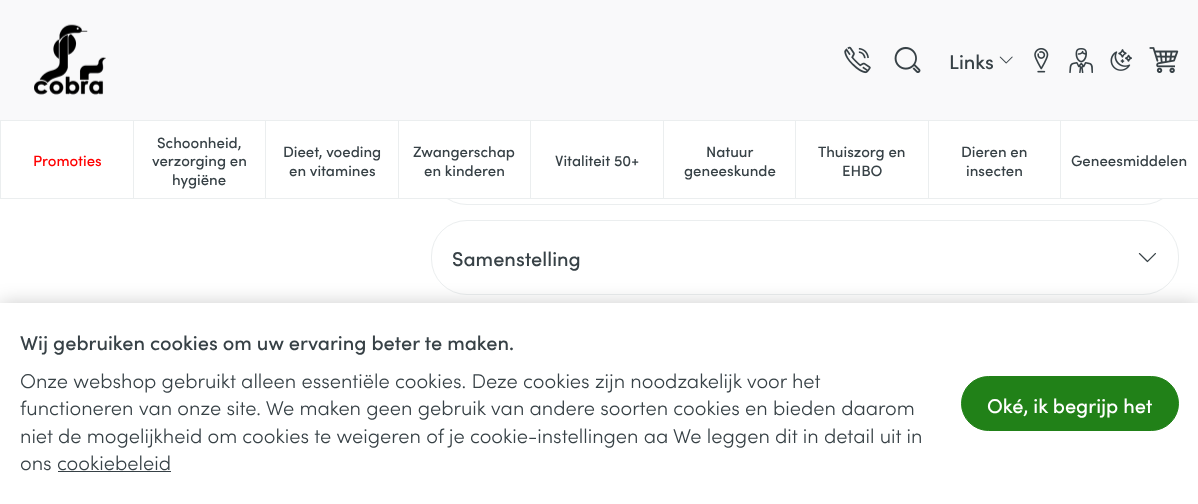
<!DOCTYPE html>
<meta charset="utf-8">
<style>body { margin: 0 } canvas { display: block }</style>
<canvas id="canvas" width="1198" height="504"></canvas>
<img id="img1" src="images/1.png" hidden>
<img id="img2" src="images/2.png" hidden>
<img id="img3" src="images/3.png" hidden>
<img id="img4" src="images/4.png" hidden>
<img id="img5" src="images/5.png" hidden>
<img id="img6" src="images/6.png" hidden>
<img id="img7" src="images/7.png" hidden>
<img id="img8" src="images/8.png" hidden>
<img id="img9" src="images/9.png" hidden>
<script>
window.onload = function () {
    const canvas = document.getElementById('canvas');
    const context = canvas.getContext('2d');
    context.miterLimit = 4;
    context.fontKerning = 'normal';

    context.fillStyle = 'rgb(255, 255, 255)';
    context.fillRect(0, 0, 1198, 504);
    context.beginPath();
    context.roundRect(431.5, 130.5, 747, 74, 35.5);
    context.strokeStyle = 'rgb(235, 238, 239)';
    context.stroke();
    context.fillStyle = 'rgb(235, 238, 239)';
    context.fillRect(0, 198, 1198, 1);
    context.fillStyle = 'rgb(249, 249, 250)';
    context.fillRect(0, 0, 1198, 120);
    context.drawImage(document.getElementById('img1'), 34, 24, 72, 71);
    context.drawImage(document.getElementById('img2'), 844, 46, 27, 28);
    context.drawImage(document.getElementById('img3'), 894, 46, 27, 27);
    context.drawImage(document.getElementById('img4'), 999, 56, 14, 8);
    context.drawImage(document.getElementById('img5'), 1034, 48, 15, 25);
    context.drawImage(document.getElementById('img6'), 1069, 48, 24, 25);
    context.drawImage(document.getElementById('img7'), 1110, 49, 22, 22);
    context.drawImage(document.getElementById('img8'), 1149, 47, 30, 26);
    context.fillStyle = 'rgb(255, 255, 255)';
    context.fillRect(431, 130, 748, 68);
    context.fillStyle = 'rgb(235, 238, 239)';
    context.fillRect(0, 120, 1198, 1);
    context.fillRect(0, 121, 1, 77);
    context.fillRect(133, 121, 1, 77);
    context.fillRect(265, 121, 1, 77);
    context.fillRect(398, 121, 1, 77);
    context.fillRect(530, 121, 1, 77);
    context.fillRect(663, 121, 1, 77);
    context.fillRect(795, 121, 1, 77);
    context.fillRect(928, 121, 1, 77);
    context.fillRect(1060, 121, 1, 77);
    context.beginPath();
    context.roundRect(431.5, 220.5, 747, 74, 35.5);
    context.stroke();
    context.drawImage(document.getElementById('img9'), 1138, 253, 18, 10);
    context.fillStyle = 'rgba(0, 0, 0, 0.2)';
    context.filter = 'blur(9.5px)';
    context.beginPath();
    context.rect(0, 303, 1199, 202);
    context.fill();
    context.filter = 'none';
    context.fillStyle = 'rgb(255, 255, 255)';
    context.fillRect(0, 303, 1198, 201);
    context.fillStyle = 'rgb(55, 65, 70)';
    context.fillRect(58, 471, 113, 1);
    context.fillStyle = 'rgb(33, 129, 24)';
    context.beginPath();
    context.roundRect(961.5, 376.5, 217, 54, 27);
    context.fill();
    context.strokeStyle = 'rgb(33, 129, 24)';
    context.stroke();
    context.font = '500 20px Sofia';
    context.fillStyle = 'rgb(55, 65, 70)';
    context.fillText('Links', 949, 69);
    context.font = '500 15px Sofia';
    context.fillStyle = 'rgb(255, 0, 0)';
    context.fillText('Promoties', 33, 166);
    context.fillStyle = 'rgb(55, 65, 70)';
    context.fillText('Schoonheid,', 157, 148);
    context.fillText('verzorging en', 152, 166);
    context.fillText('hygiëne', 172, 185);
    context.fillText('Dieet, voeding', 283, 157);
    context.fillText('en vitamines', 289, 176);
    context.fillText('Zwangerschap', 413, 157);
    context.fillText('en kinderen', 424, 176);
    context.fillText('Vitaliteit 50+', 555, 166);
    context.fillText('Natuur', 706, 157);
    context.fillText('geneeskunde', 684, 176);
    context.fillText('Thuiszorg en', 818, 157);
    context.fillText('EHBO', 842, 176);
    context.fillText('Dieren en', 961, 157);
    context.fillText('insecten', 966, 176);
    context.fillText('Geneesmiddelen', 1071, 166);
    context.font = '500 20px Sofia';
    context.fillText('Samenstelling', 452, 266);
    context.fillText('Wij gebruiken cookies om uw ervaring beter te maken.', 20, 350);
    context.font = '300 20px Sofia';
    context.fillText('Onze webshop gebruikt alleen essentiële cookies. Deze cookies zijn noodzakelijk voor het', 20, 388);
    context.fillText('functioneren van onze site. We maken geen gebruik van andere soorten cookies en bieden daarom', 20, 415);
    context.fillText('niet de mogelijkheid om cookies te weigeren of je cookie-instellingen aa We leggen dit in detail uit in', 20, 443);
    context.fillText('ons cookiebeleid', 20, 470);
    context.font = '500 20px Sofia';
    context.fillStyle = 'rgb(255, 255, 255)';
    context.fillText('Oké, ik begrijp het', 987, 413);
};
</script>
